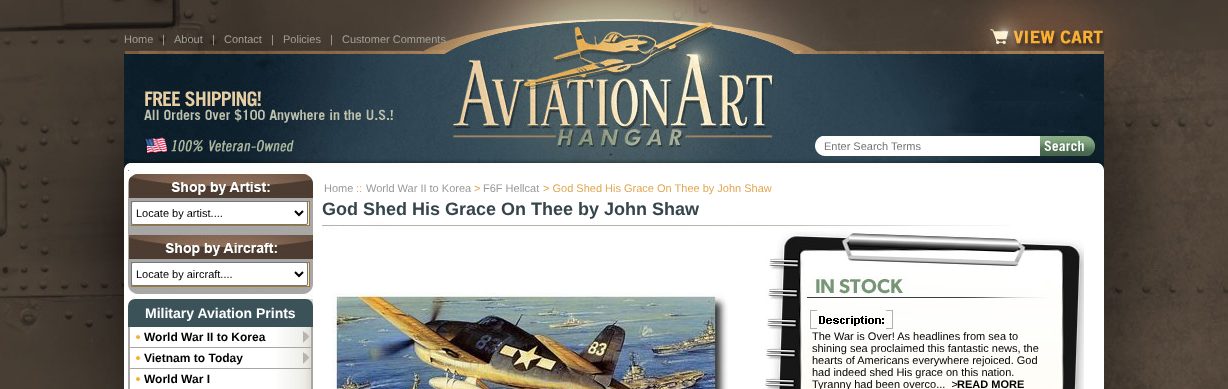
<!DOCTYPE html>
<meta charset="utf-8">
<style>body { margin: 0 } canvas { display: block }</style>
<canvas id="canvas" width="1228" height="389"></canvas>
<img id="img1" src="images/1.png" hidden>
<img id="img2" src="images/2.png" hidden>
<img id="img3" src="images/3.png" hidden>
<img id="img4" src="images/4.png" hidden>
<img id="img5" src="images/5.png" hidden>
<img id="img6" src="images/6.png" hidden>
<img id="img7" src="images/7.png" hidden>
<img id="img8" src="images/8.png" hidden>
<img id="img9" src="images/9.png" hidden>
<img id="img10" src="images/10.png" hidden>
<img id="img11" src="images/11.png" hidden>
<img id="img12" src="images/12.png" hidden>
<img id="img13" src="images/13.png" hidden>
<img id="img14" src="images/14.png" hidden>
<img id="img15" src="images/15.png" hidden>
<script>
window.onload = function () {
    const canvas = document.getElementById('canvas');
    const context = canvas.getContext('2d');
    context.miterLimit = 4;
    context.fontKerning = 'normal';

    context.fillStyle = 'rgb(255, 255, 255)';
    context.fillRect(0, 0, 1228, 389);
    context.drawImage(document.getElementById('img1'), 0, 0, 1228, 389);
    context.fillRect(313, 170, 791, 219);
    context.drawImage(document.getElementById('img2'), 124, 170, 4, 219);
    context.drawImage(document.getElementById('img3'), 124, 0, 980, 54);
    context.drawImage(document.getElementById('img4'), 124, 54, 980, 82);
    context.drawImage(document.getElementById('img5'), 124, 136, 980, 34);
    context.drawImage(document.getElementById('img6'), 1040, 136, 55, 20);
    context.drawImage(document.getElementById('img7'), 128, 170, 185, 129);
    context.beginPath();
    context.roundRect(131.5, 201.5, 176, 23, 1.5);
    context.fill();
    context.strokeStyle = 'rgb(118, 118, 118)';
    context.stroke();
    context.beginPath();
    context.moveTo(295, 211);
    context.lineTo(299, 215);
    context.lineTo(303, 211);
    context.strokeStyle = 'rgb(0, 0, 0)';
    context.lineWidth = 2;
    context.stroke();
    context.beginPath();
    context.roundRect(131.5, 262.5, 176, 23, 1.5);
    context.fill();
    context.strokeStyle = 'rgb(118, 118, 118)';
    context.lineWidth = 1;
    context.stroke();
    context.beginPath();
    context.moveTo(295, 272);
    context.lineTo(299, 276);
    context.lineTo(303, 272);
    context.strokeStyle = 'rgb(0, 0, 0)';
    context.lineWidth = 2;
    context.stroke();
    context.fillRect(128, 299, 149, 90);
    context.drawImage(document.getElementById('img8'), 277, 299, 36, 90);
    context.fillStyle = 'rgb(59, 82, 89)';
    context.beginPath();
    context.roundRect(128, 299, 185, 28, [7, 7, 0, 0]);
    context.fill();
    context.drawImage(document.getElementById('img9'), 136, 334, 4, 5);
    context.fillStyle = 'rgb(168, 167, 163)';
    context.fillRect(311, 327, 2, 62);
    context.fillRect(128, 347, 185, 1);
    context.fillRect(128, 327, 2, 21);
    context.drawImage(document.getElementById('img10'), 303, 331, 6, 12);
    context.drawImage(document.getElementById('img9'), 136, 355, 4, 5);
    context.fillRect(128, 368, 185, 1);
    context.fillRect(128, 348, 2, 41);
    context.drawImage(document.getElementById('img10'), 303, 352, 6, 12);
    context.drawImage(document.getElementById('img9'), 136, 376, 4, 5);
    context.drawImage(document.getElementById('img11'), 322, 221, 688, 9);
    context.drawImage(document.getElementById('img12'), 332, 292, 396, 97);
    context.drawImage(document.getElementById('img13'), 765, 231, 319, 158);
    context.drawImage(document.getElementById('img14'), 806, 276, 240, 23);
    context.drawImage(document.getElementById('img15'), 810, 309, 84, 21);
    context.font = '11px Liberation Sans';
    context.fillStyle = 'rgb(164, 160, 149)';
    context.fillText('Home', 124, 43);
    context.fillText('|', 162, 43);
    context.fillText('About', 174, 43);
    context.fillText('|', 212, 43);
    context.fillText('Contact', 224, 43);
    context.fillText('|', 271, 43);
    context.fillText('Policies', 283, 43);
    context.fillText('|', 330, 43);
    context.fillText('Customer Comments', 342, 43);
    context.fillStyle = 'rgb(117, 117, 117)';
    context.fillText('Enter Search Terms', 824, 150);
    context.fillStyle = 'rgb(0, 0, 0)';
    context.fillText('Locate by artist....', 136, 217);
    context.fillText('Locate by aircraft....', 136, 278);
    context.font = 'bold 14px Liberation Sans';
    context.fillStyle = 'rgb(255, 255, 255)';
    context.fillText('Military Aviation Prints', 145, 318);
    context.font = 'bold 12px Liberation Sans';
    context.fillStyle = 'rgb(0, 0, 0)';
    context.fillText('World War II to Korea', 144, 341);
    context.fillText('Vietnam to Today', 144, 362);
    context.fillText('World War I', 144, 383);
    context.font = '11px Liberation Sans';
    context.fillStyle = 'rgb(153, 153, 153)';
    context.fillText('Home', 324, 192);
    context.fillStyle = 'rgb(225, 167, 83)';
    context.fillText('::', 356, 192);
    context.fillStyle = 'rgb(153, 153, 153)';
    context.fillText('World War II to Korea', 366, 192);
    context.fillStyle = 'rgb(225, 167, 83)';
    context.fillText('>', 474, 192);
    context.fillStyle = 'rgb(153, 153, 153)';
    context.fillText('F6F Hellcat', 483, 192);
    context.fillStyle = 'rgb(225, 167, 83)';
    context.fillText('> God Shed His Grace On Thee by John Shaw', 543, 192);
    context.font = 'bold 18px Liberation Sans';
    context.fillStyle = 'rgb(54, 69, 76)';
    context.fillText('God Shed His Grace On Thee by John Shaw', 322, 215);
    context.font = '11px Liberation Sans';
    context.fillStyle = 'rgb(0, 0, 0)';
    context.fillText('The War is Over! As headlines from sea to', 812, 340);
    context.fillText('shining sea proclaimed this fantastic news, the', 812, 352);
    context.fillText('hearts of Americans everywhere rejoiced. God', 812, 364);
    context.fillText('had indeed shed His grace on this nation.', 812, 376);
    context.fillText('Tyranny had been overco...  >', 812, 388);
    context.font = 'bold 11px Liberation Sans';
    context.fillText('READ MORE', 957, 388);
};
</script>
